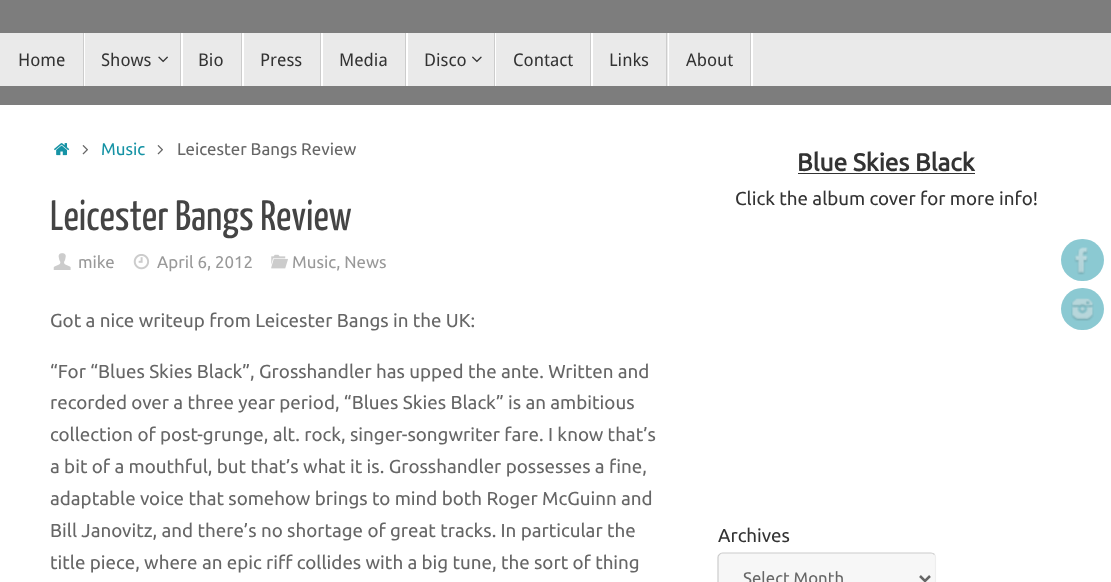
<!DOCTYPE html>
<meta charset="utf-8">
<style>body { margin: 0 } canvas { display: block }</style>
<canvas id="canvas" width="1111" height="582"></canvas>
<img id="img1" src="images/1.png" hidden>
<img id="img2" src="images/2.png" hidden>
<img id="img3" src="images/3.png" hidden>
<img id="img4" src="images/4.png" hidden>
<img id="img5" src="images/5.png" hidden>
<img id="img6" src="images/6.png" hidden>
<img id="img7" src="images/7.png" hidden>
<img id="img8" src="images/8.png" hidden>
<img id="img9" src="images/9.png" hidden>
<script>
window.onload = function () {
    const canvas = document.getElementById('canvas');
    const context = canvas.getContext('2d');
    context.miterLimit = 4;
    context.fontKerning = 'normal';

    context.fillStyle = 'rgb(125, 125, 125)';
    context.fillRect(0, 0, 1111, 582);
    context.fillStyle = 'rgb(234, 234, 234)';
    context.fillRect(0, 33, 1111, 53);
    context.fillStyle = 'rgb(255, 255, 255)';
    context.fillRect(84, 33, 1, 53);
    context.fillStyle = 'rgb(204, 204, 204)';
    context.fillRect(83, 33, 1, 53);
    context.fillStyle = 'rgb(255, 255, 255)';
    context.fillRect(181, 33, 2, 53);
    context.fillStyle = 'rgb(204, 204, 204)';
    context.fillRect(180, 33, 1, 53);
    context.drawImage(document.getElementById('img1'), 158, 56, 10, 7);
    context.fillStyle = 'rgb(255, 255, 255)';
    context.fillRect(242, 33, 2, 53);
    context.fillStyle = 'rgb(204, 204, 204)';
    context.fillRect(241, 33, 1, 53);
    context.fillStyle = 'rgb(255, 255, 255)';
    context.fillRect(321, 33, 2, 53);
    context.fillStyle = 'rgb(204, 204, 204)';
    context.fillRect(320, 33, 1, 53);
    context.fillStyle = 'rgb(255, 255, 255)';
    context.fillRect(406, 33, 2, 53);
    context.fillStyle = 'rgb(204, 204, 204)';
    context.fillRect(405, 33, 1, 53);
    context.fillStyle = 'rgb(255, 255, 255)';
    context.fillRect(495, 33, 1, 53);
    context.fillStyle = 'rgb(204, 204, 204)';
    context.fillRect(494, 33, 1, 53);
    context.drawImage(document.getElementById('img2'), 472, 56, 10, 7);
    context.fillStyle = 'rgb(255, 255, 255)';
    context.fillRect(591, 33, 2, 53);
    context.fillStyle = 'rgb(204, 204, 204)';
    context.fillRect(590, 33, 1, 53);
    context.fillStyle = 'rgb(255, 255, 255)';
    context.fillRect(668, 33, 1, 53);
    context.fillStyle = 'rgb(204, 204, 204)';
    context.fillRect(666, 33, 1, 53);
    context.fillStyle = 'rgb(255, 255, 255)';
    context.fillRect(751, 33, 2, 53);
    context.fillStyle = 'rgb(204, 204, 204)';
    context.fillRect(750, 33, 1, 53);
    context.fillStyle = 'rgb(255, 255, 255)';
    context.fillRect(0, 105, 1111, 477);
    context.drawImage(document.getElementById('img3'), 54, 143, 16, 13);
    context.drawImage(document.getElementById('img4'), 82, 145, 6, 10);
    context.drawImage(document.getElementById('img4'), 157, 145, 6, 10);
    context.drawImage(document.getElementById('img5'), 53, 253, 18, 17);
    context.drawImage(document.getElementById('img6'), 133, 254, 17, 16);
    context.drawImage(document.getElementById('img7'), 271, 254, 17, 15);
    context.fillStyle = 'rgb(51, 51, 51)';
    context.fillRect(798, 173, 177, 1);
    context.fillStyle = 'rgb(247, 247, 247)';
    context.beginPath();
    context.roundRect(718, 553, 218, 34, 5);
    context.fill();
    context.beginPath();
    context.moveTo(934.5, 554.5);
    context.bezierCurveTo(935, 555, 935.5, 556.5, 935.5, 557.5);
    context.lineTo(935.5, 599);
    context.bezierCurveTo(935.5, 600, 935, 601, 934.5, 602);
    context.bezierCurveTo(933.5, 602.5, 932.5, 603, 931, 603);
    context.lineTo(722.5, 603);
    context.bezierCurveTo(721.5, 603, 720, 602.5, 719.5, 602);
    context.strokeStyle = 'rgb(238, 238, 238)';
    context.lineWidth = 1.2;
    context.stroke();
    context.beginPath();
    context.moveTo(719.5, 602);
    context.bezierCurveTo(718.5, 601, 718, 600, 718, 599);
    context.lineTo(718, 557.5);
    context.bezierCurveTo(718, 556.5, 718.5, 555, 719.5, 554.5);
    context.bezierCurveTo(720, 553.5, 721.5, 553, 722.5, 553);
    context.lineTo(931, 553);
    context.bezierCurveTo(932.5, 553, 933.5, 553.5, 934.5, 554.5);
    context.strokeStyle = 'rgb(204, 204, 204)';
    context.stroke();
    context.beginPath();
    context.moveTo(920, 576);
    context.lineTo(925, 581);
    context.lineTo(930, 576);
    context.strokeStyle = 'rgb(102, 102, 102)';
    context.lineWidth = 2.5;
    context.stroke();
    context.fillStyle = 'rgb(139, 201, 210)';
    context.beginPath();
    context.roundRect(1061, 239, 43, 42, 21);
    context.fill();
    context.drawImage(document.getElementById('img8'), 1074, 247, 14, 28);
    context.beginPath();
    context.roundRect(1061, 288, 43, 42, 21);
    context.fill();
    context.drawImage(document.getElementById('img9'), 1071, 298, 23, 23);
    context.font = '17.5px Droid Sans';
    context.fillStyle = 'rgb(51, 51, 51)';
    context.fillText('Home', 18, 66);
    context.fillText('Shows', 101, 66);
    context.fillText('Bio', 198, 66);
    context.fillText('Press', 260, 66);
    context.fillText('Media', 339, 66);
    context.fillText('Disco', 424, 66);
    context.fillText('Contact', 513, 66);
    context.fillText('Links', 609, 66);
    context.fillText('About', 686, 66);
    context.font = '16.9px Ubuntu';
    context.fillStyle = 'rgb(22, 147, 165)';
    context.fillText('Music', 101, 155);
    context.fillStyle = 'rgb(102, 102, 102)';
    context.fillText('Leicester Bangs Review', 177, 155);
    context.font = '42.5px Yanone Kaffeesatz';
    context.fillStyle = 'rgb(68, 68, 68)';
    context.fillText('Leicester Bangs Review', 50, 230);
    context.font = '16.9px Ubuntu';
    context.fillStyle = 'rgb(153, 153, 153)';
    context.fillText('mike', 78, 268);
    context.fillText('April 6, 2012', 157, 268);
    context.fillText('Music, News', 292, 268);
    context.font = '18.75px Ubuntu';
    context.fillStyle = 'rgb(102, 102, 102)';
    context.fillText('Got a nice writeup from Leicester Bangs in the UK:', 50, 327);
    context.fillText('“For “Blues Skies Black”, Grosshandler has upped the ante. Written and', 50, 378);
    context.fillText('recorded over a three year period, “Blues Skies Black” is an ambitious', 50, 409);
    context.fillText('collection of post-grunge, alt. rock, singer-songwriter fare. I know that’s', 50, 441);
    context.fillText('a bit of a mouthful, but that’s what it is. Grosshandler possesses a fine,', 50, 473);
    context.fillText('adaptable voice that somehow brings to mind both Roger McGuinn and', 50, 505);
    context.fillText('Bill Janovitz, and there’s no shortage of great tracks. In particular the', 50, 537);
    context.fillText('title piece, where an epic riff collides with a big tune, the sort of thing', 50, 569);
    context.font = 'bold 24.5px Ubuntu';
    context.fillStyle = 'rgb(51, 51, 51)';
    context.fillText('Blue Skies Black', 797, 171);
    context.font = '18.75px Ubuntu';
    context.fillText('Click the album cover for more info!', 735, 205);
    context.fillText('Archives', 718, 542);
    context.font = '16.75px Ubuntu';
    context.fillStyle = 'rgb(102, 102, 102)';
    context.fillText('Select Month', 743, 584);
};
</script>
